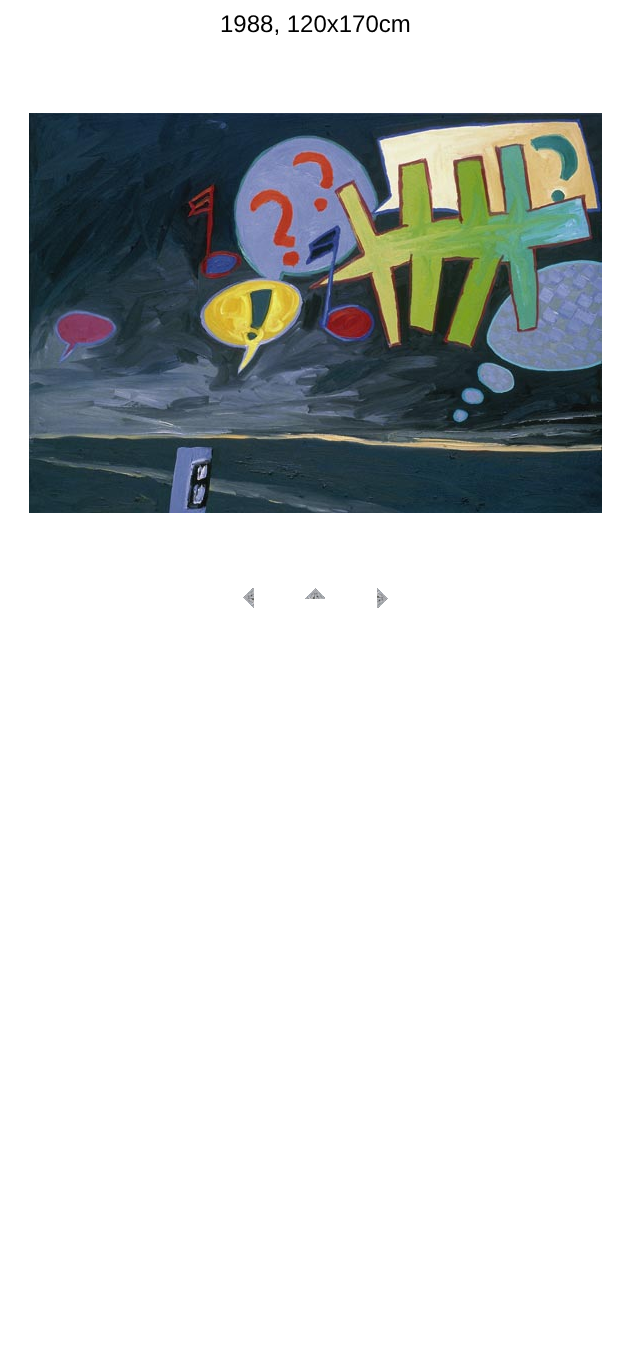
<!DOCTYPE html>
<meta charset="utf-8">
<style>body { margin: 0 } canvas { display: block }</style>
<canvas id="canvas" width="631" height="1356"></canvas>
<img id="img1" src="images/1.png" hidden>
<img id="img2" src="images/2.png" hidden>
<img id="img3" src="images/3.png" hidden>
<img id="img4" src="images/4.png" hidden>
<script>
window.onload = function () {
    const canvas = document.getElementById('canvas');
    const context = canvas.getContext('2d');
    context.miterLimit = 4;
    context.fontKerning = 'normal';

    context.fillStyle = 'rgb(255, 255, 255)';
    context.fillRect(0, 0, 631, 1356);
    context.drawImage(document.getElementById('img1'), 29, 113, 573, 400);
    context.drawImage(document.getElementById('img2'), 243, 588, 11, 20);
    context.drawImage(document.getElementById('img3'), 305, 588, 20, 11);
    context.drawImage(document.getElementById('img4'), 377, 588, 11, 20);
    context.font = '24px Liberation Sans';
    context.fillStyle = 'rgb(0, 0, 0)';
    context.fillText('1988, 120x170cm', 220, 32);
};
</script>
